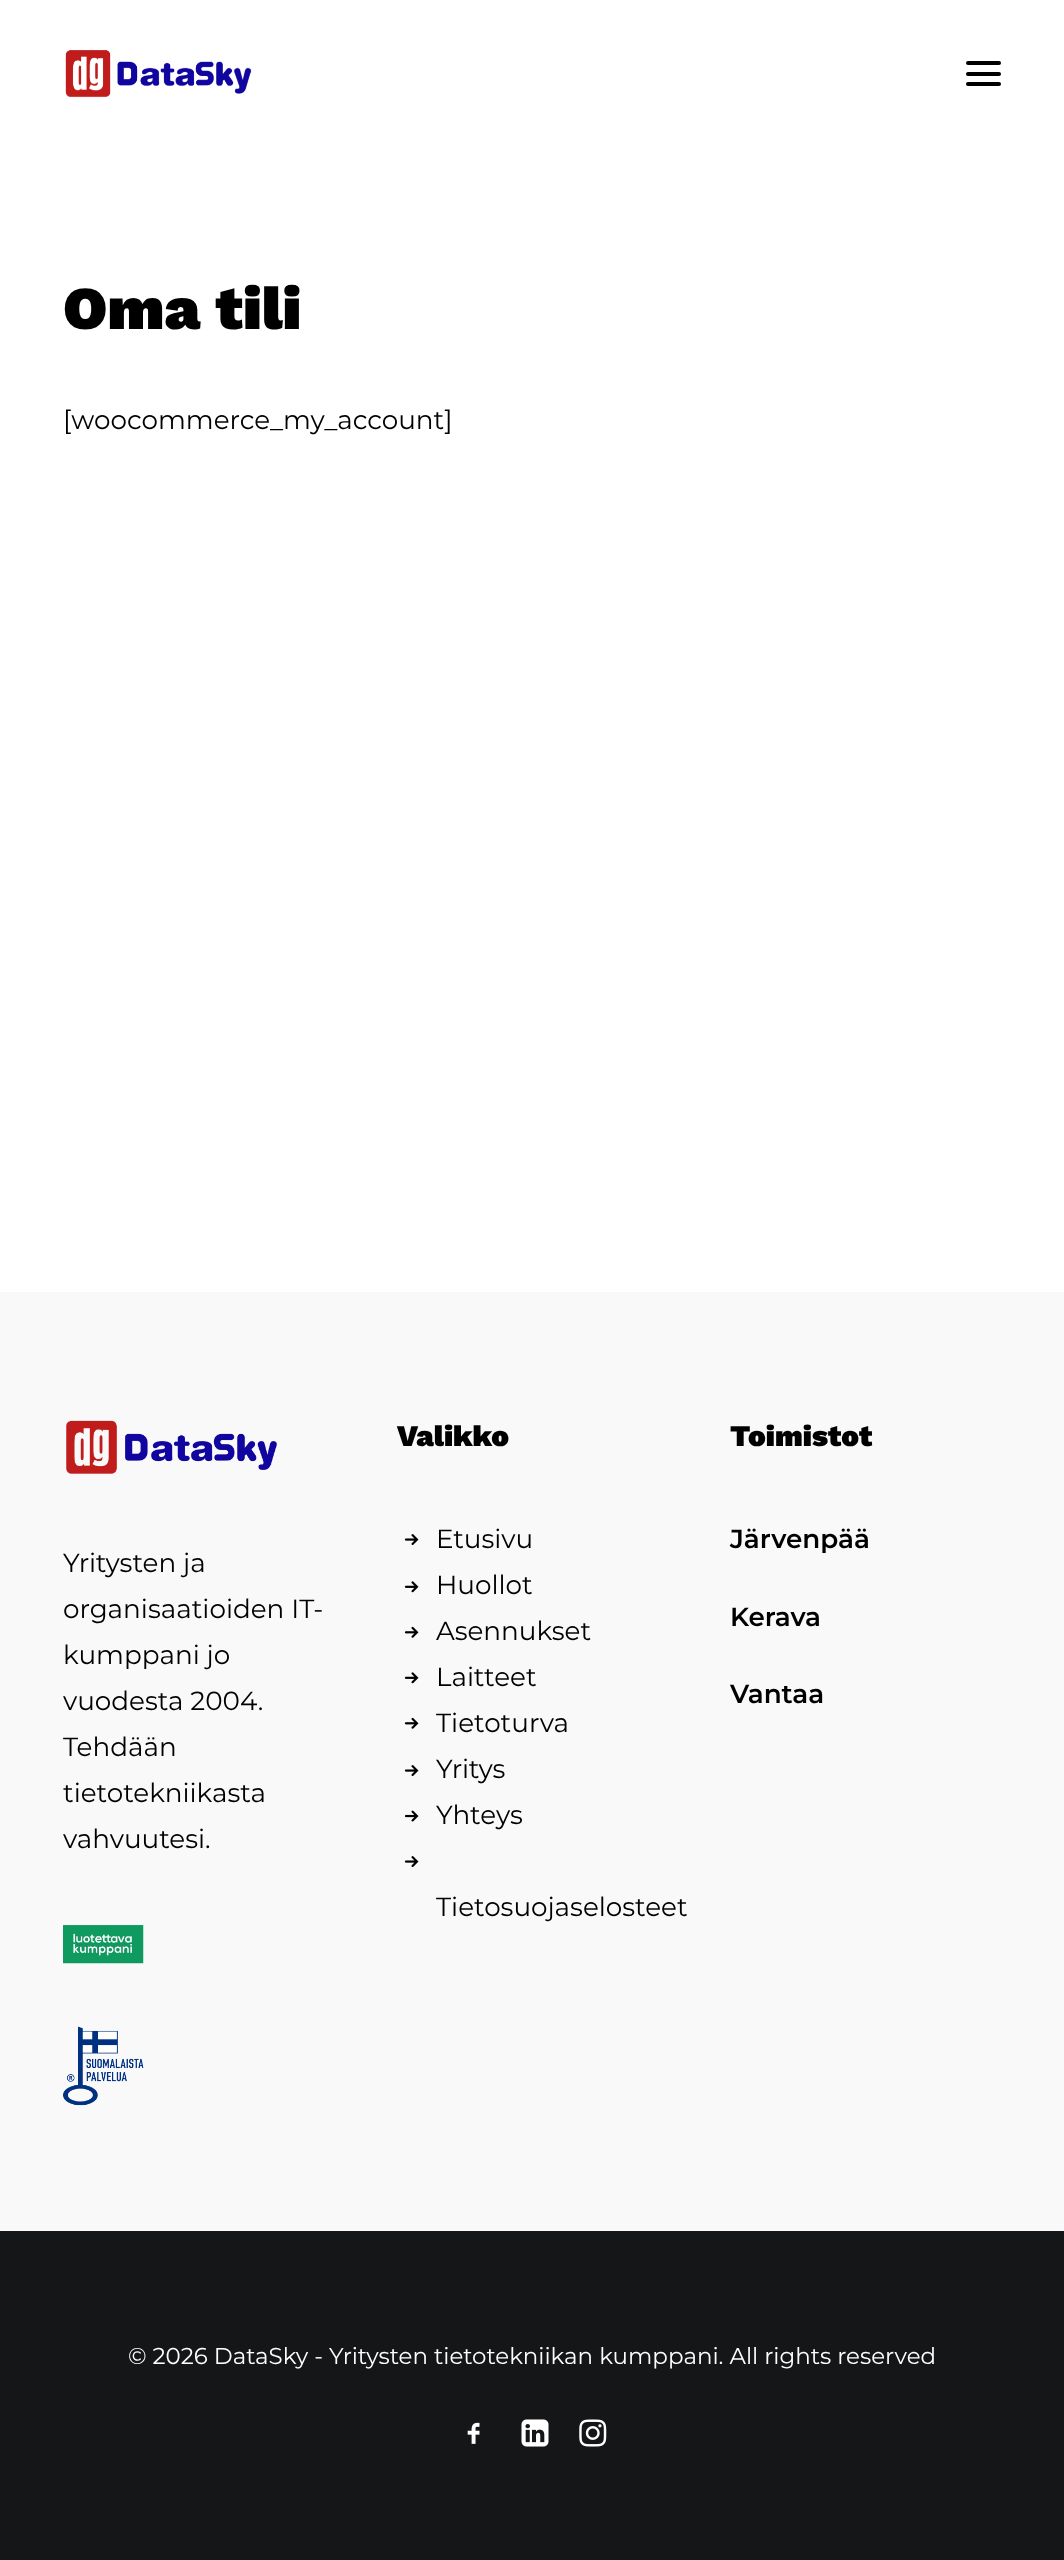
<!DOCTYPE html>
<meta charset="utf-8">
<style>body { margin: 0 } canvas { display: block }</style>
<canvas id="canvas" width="1064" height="2560"></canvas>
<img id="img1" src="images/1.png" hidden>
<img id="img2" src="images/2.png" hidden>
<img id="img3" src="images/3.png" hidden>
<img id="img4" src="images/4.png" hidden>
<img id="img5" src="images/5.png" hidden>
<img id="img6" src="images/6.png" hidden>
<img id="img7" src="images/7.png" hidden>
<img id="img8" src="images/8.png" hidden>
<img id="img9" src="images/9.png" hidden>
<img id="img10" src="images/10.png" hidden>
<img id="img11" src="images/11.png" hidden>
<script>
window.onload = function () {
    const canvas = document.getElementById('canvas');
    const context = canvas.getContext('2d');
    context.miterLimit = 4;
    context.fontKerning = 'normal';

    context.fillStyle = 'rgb(255, 255, 255)';
    context.fillRect(0, 0, 1064, 2560);
    context.drawImage(document.getElementById('img1'), 65, 50, 187, 48);
    context.fillStyle = 'rgb(0, 0, 0)';
    context.beginPath();
    context.roundRect(966, 72, 35, 4, 2);
    context.fill();
    context.beginPath();
    context.roundRect(966, 61, 35, 4, 2);
    context.fill();
    context.beginPath();
    context.roundRect(966, 82, 35, 4, 2);
    context.fill();
    context.fillStyle = 'rgb(249, 249, 249)';
    context.fillRect(0, 1292, 1064, 939);
    context.drawImage(document.getElementById('img2'), 66, 1420, 211, 54);
    context.drawImage(document.getElementById('img3'), 63, 1925, 81, 39);
    context.drawImage(document.getElementById('img4'), 63, 2026, 81, 80);
    context.drawImage(document.getElementById('img5'), 404, 1534, 15, 11);
    context.drawImage(document.getElementById('img6'), 404, 1581, 15, 12);
    context.drawImage(document.getElementById('img7'), 404, 1626, 15, 12);
    context.drawImage(document.getElementById('img6'), 404, 1672, 15, 12);
    context.drawImage(document.getElementById('img7'), 404, 1717, 15, 12);
    context.drawImage(document.getElementById('img5'), 404, 1765, 15, 11);
    context.drawImage(document.getElementById('img8'), 404, 1810, 15, 12);
    context.drawImage(document.getElementById('img5'), 404, 1856, 15, 11);
    context.fillStyle = 'rgb(20, 22, 24)';
    context.fillRect(0, 2231, 1064, 329);
    context.drawImage(document.getElementById('img9'), 467, 2422, 13, 22);
    context.drawImage(document.getElementById('img10'), 521, 2419, 28, 28);
    context.drawImage(document.getElementById('img11'), 579, 2419, 28, 28);
    context.font = '900 61px Work Sans';
    context.fillStyle = 'rgb(0, 0, 0)';
    context.fillText('Oma tili', 63, 329);
    context.font = '26.25px Montserrat';
    context.fillText('[woocommerce_my_account]', 63, 429);
    context.fillText('Yritysten ja', 63, 1572);
    context.fillText('organisaatioiden IT-', 63, 1618);
    context.fillText('kumppani jo', 63, 1664);
    context.fillText('vuodesta 2004.', 63, 1710);
    context.fillText('Tehdään', 63, 1756);
    context.fillText('tietotekniikasta', 63, 1802);
    context.fillText('vahvuutesi.', 63, 1848);
    context.font = '900 29.75px Work Sans';
    context.fillText('Valikko', 397, 1446);
    context.font = '26.25px Montserrat';
    context.fillText('Etusivu', 436, 1548);
    context.fillText('Huollot', 436, 1594);
    context.fillText('Asennukset', 436, 1640);
    context.fillText('Laitteet', 436, 1686);
    context.fillText('Tietoturva', 436, 1732);
    context.fillText('Yritys', 436, 1778);
    context.fillText('Yhteys', 436, 1824);
    context.fillText('Tietosuojaselosteet', 436, 1916);
    context.font = '900 29.75px Work Sans';
    context.fillText('Toimistot', 730, 1446);
    context.font = '600 26.25px Montserrat';
    context.fillText('Järvenpää', 730, 1548);
    context.fillText('Kerava', 730, 1626);
    context.fillText('Vantaa', 730, 1703);
    context.font = '22.95px Montserrat';
    context.fillStyle = 'rgb(255, 255, 255)';
    context.fillText('© 2026 DataSky - Yritysten tietotekniikan kumppani. All rights reserved', 128, 2364);
};
</script>
